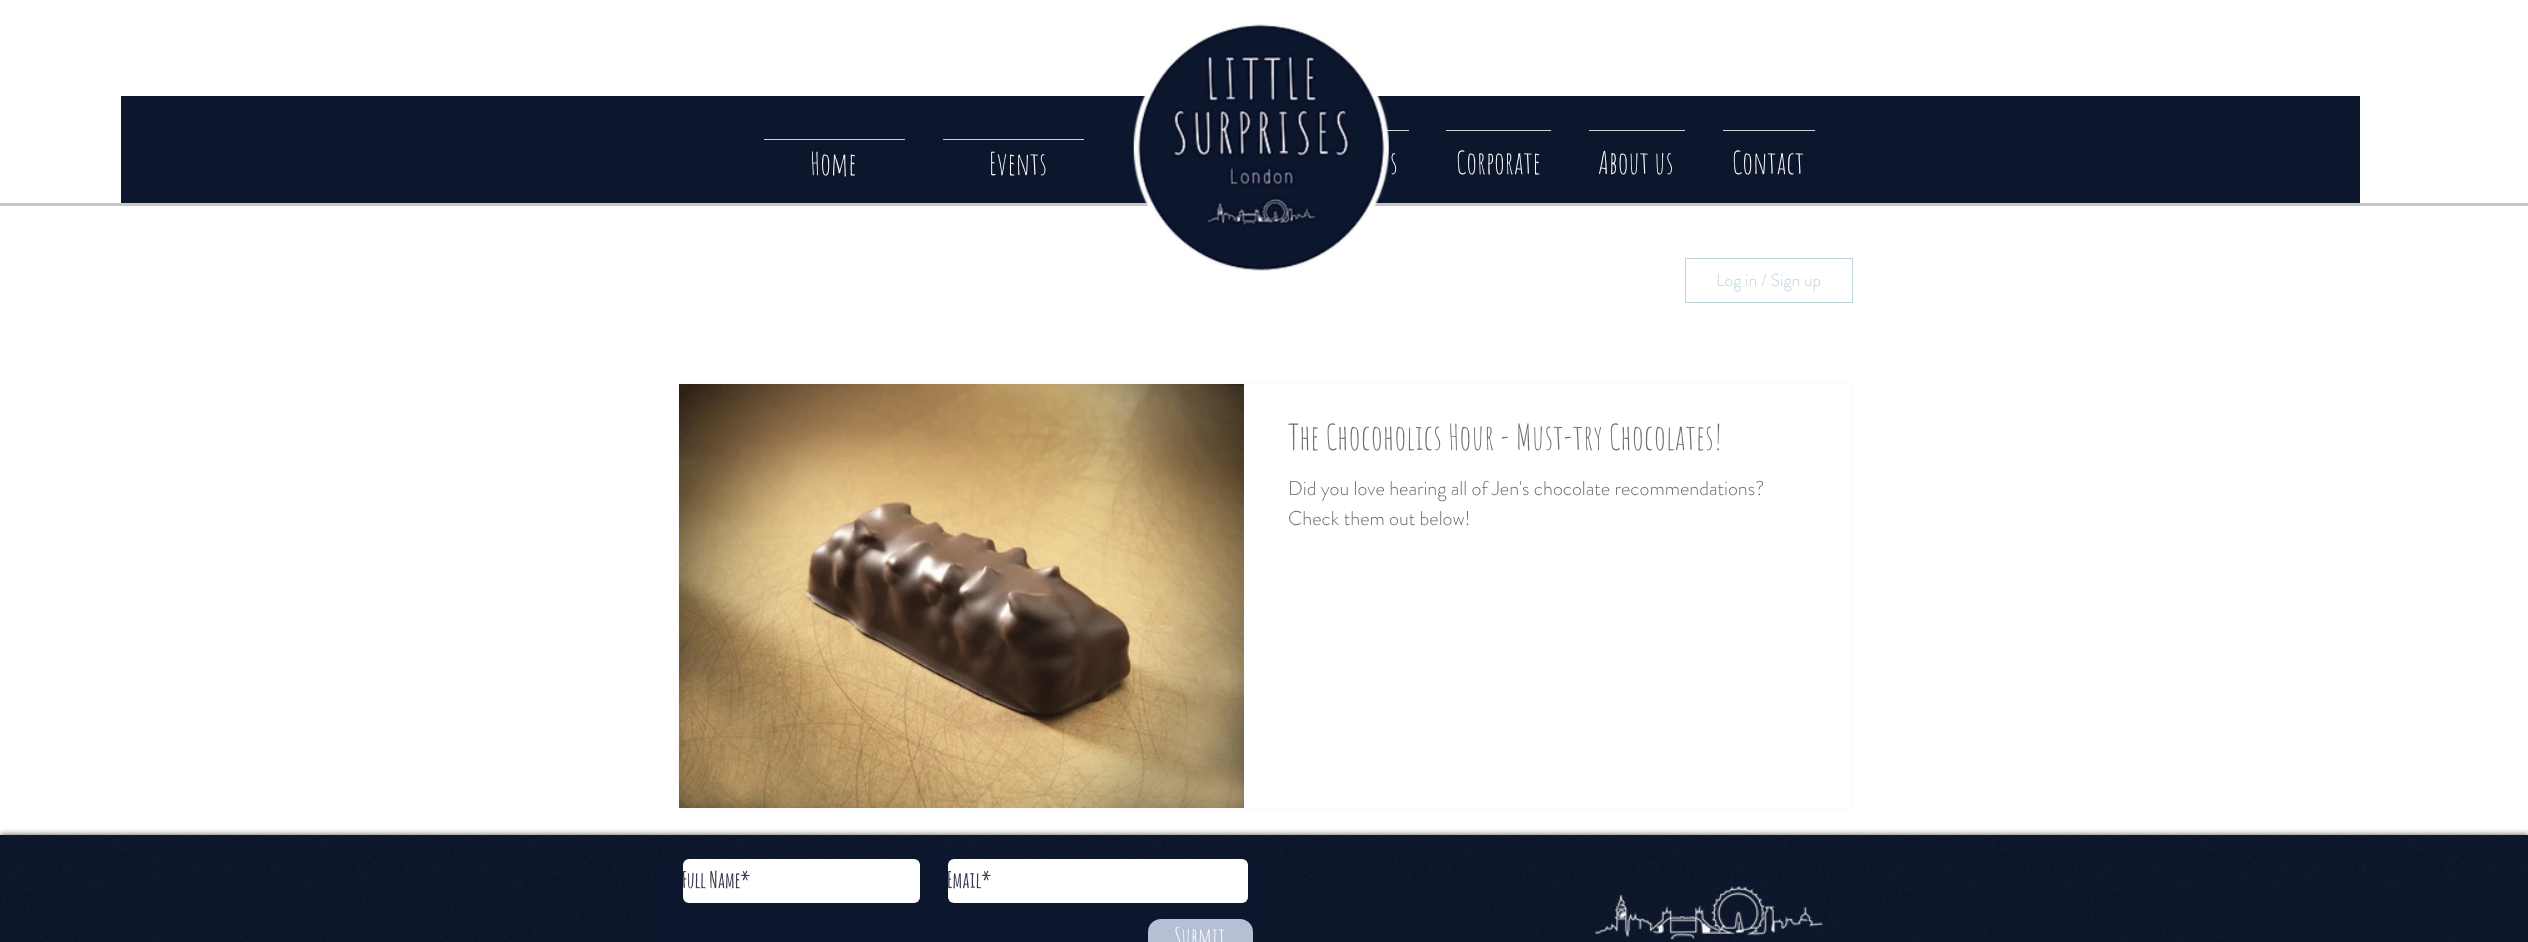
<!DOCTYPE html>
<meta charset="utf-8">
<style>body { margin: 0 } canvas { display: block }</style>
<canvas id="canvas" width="2528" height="942"></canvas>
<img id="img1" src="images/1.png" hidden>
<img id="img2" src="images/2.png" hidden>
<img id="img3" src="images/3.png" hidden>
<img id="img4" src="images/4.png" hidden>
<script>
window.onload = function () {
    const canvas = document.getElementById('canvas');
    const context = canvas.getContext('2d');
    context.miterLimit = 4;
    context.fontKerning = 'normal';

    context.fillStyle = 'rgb(255, 255, 255)';
    context.fillRect(0, 0, 2528, 942);
    context.fillStyle = 'rgb(12, 22, 44)';
    context.fillRect(121, 96, 2239, 107);
    context.fillStyle = 'rgb(206, 208, 213)';
    context.fillRect(1383, 130, 26, 1);
    context.fillStyle = 'rgb(199, 199, 199)';
    context.fillRect(0, 203, 2528, 3);
    context.drawImage(document.getElementById('img1'), 1133, 24, 256, 247);
    context.fillStyle = 'rgb(206, 208, 213)';
    context.fillRect(764, 139, 141, 1);
    context.fillRect(943, 139, 141, 1);
    context.fillRect(1446, 130, 105, 1);
    context.fillRect(1589, 130, 96, 1);
    context.fillRect(1723, 130, 92, 1);
    context.strokeStyle = 'rgb(191, 211, 219)';
    context.strokeRect(1685.5, 258.5, 167, 44);
    context.strokeStyle = 'rgb(250, 250, 250)';
    context.strokeRect(678.5, 383.5, 1174, 425);
    context.drawImage(document.getElementById('img2'), 679, 384, 565, 424);
    context.fillStyle = 'rgba(0, 0, 0, 0.7)';
    context.filter = 'blur(3px)';
    context.beginPath();
    context.rect(0, 835, 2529, 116);
    context.fill();
    context.filter = 'none';
    context.fillStyle = 'rgb(12, 22, 44)';
    context.fillRect(0, 835, 2528, 107);
    context.drawImage(document.getElementById('img3'), 0, 835, 2528, 107);
    context.fillRect(653, 859, 605, 83);
    context.fillStyle = 'rgb(255, 255, 255)';
    context.beginPath();
    context.roundRect(683, 859, 237, 44, 6);
    context.fill();
    context.beginPath();
    context.roundRect(948, 859, 300, 44, 6);
    context.fill();
    context.fillStyle = 'rgb(182, 192, 213)';
    context.beginPath();
    context.roundRect(1148, 919, 105, 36, 13);
    context.fill();
    context.drawImage(document.getElementById('img4'), 1595, 886, 228, 54);
    context.font = '31px Amatic SC';
    context.fillStyle = 'rgb(255, 255, 255)';
    context.fillText('Home', 810, 175);
    context.fillText('Events', 989, 175);
    context.fillText('s', 1390, 174);
    context.fillText('Corporate', 1456, 174);
    context.fillText('About us', 1598, 174);
    context.fillText('Contact', 1732, 174);
    context.font = '300 17.5px "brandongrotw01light"';
    context.fillStyle = 'rgb(191, 211, 219)';
    context.fillText('Log in / Sign up', 1716, 286);
    context.font = '35px Amatic SC';
    context.fillStyle = 'rgb(112, 108, 108)';
    context.fillText('The Chocoholics Hour - Must-try Chocolates!', 1288, 450);
    context.font = '300 20px "brandongrotw01light"';
    context.fillText('Did you love hearing all of Jen\'s chocolate recommendations?', 1288, 495);
    context.fillText('Check them out below!', 1288, 525);
    context.save();
    context.beginPath();
    context.rect(683, 865, 233, 28);
    context.clip();
    context.font = 'bold 22.5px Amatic';
    context.fillStyle = 'rgb(55, 59, 77)';
    context.fillText('Full Name*', 682, 888);
    context.restore();
    context.font = 'bold 22.5px Amatic';
    context.fillStyle = 'rgb(55, 59, 77)';
    context.fillText('Email*', 947, 888);
    context.font = '25px Amatic SC';
    context.fillStyle = 'rgb(255, 255, 255)';
    context.fillText('Submit', 1174, 946);
};
</script>
